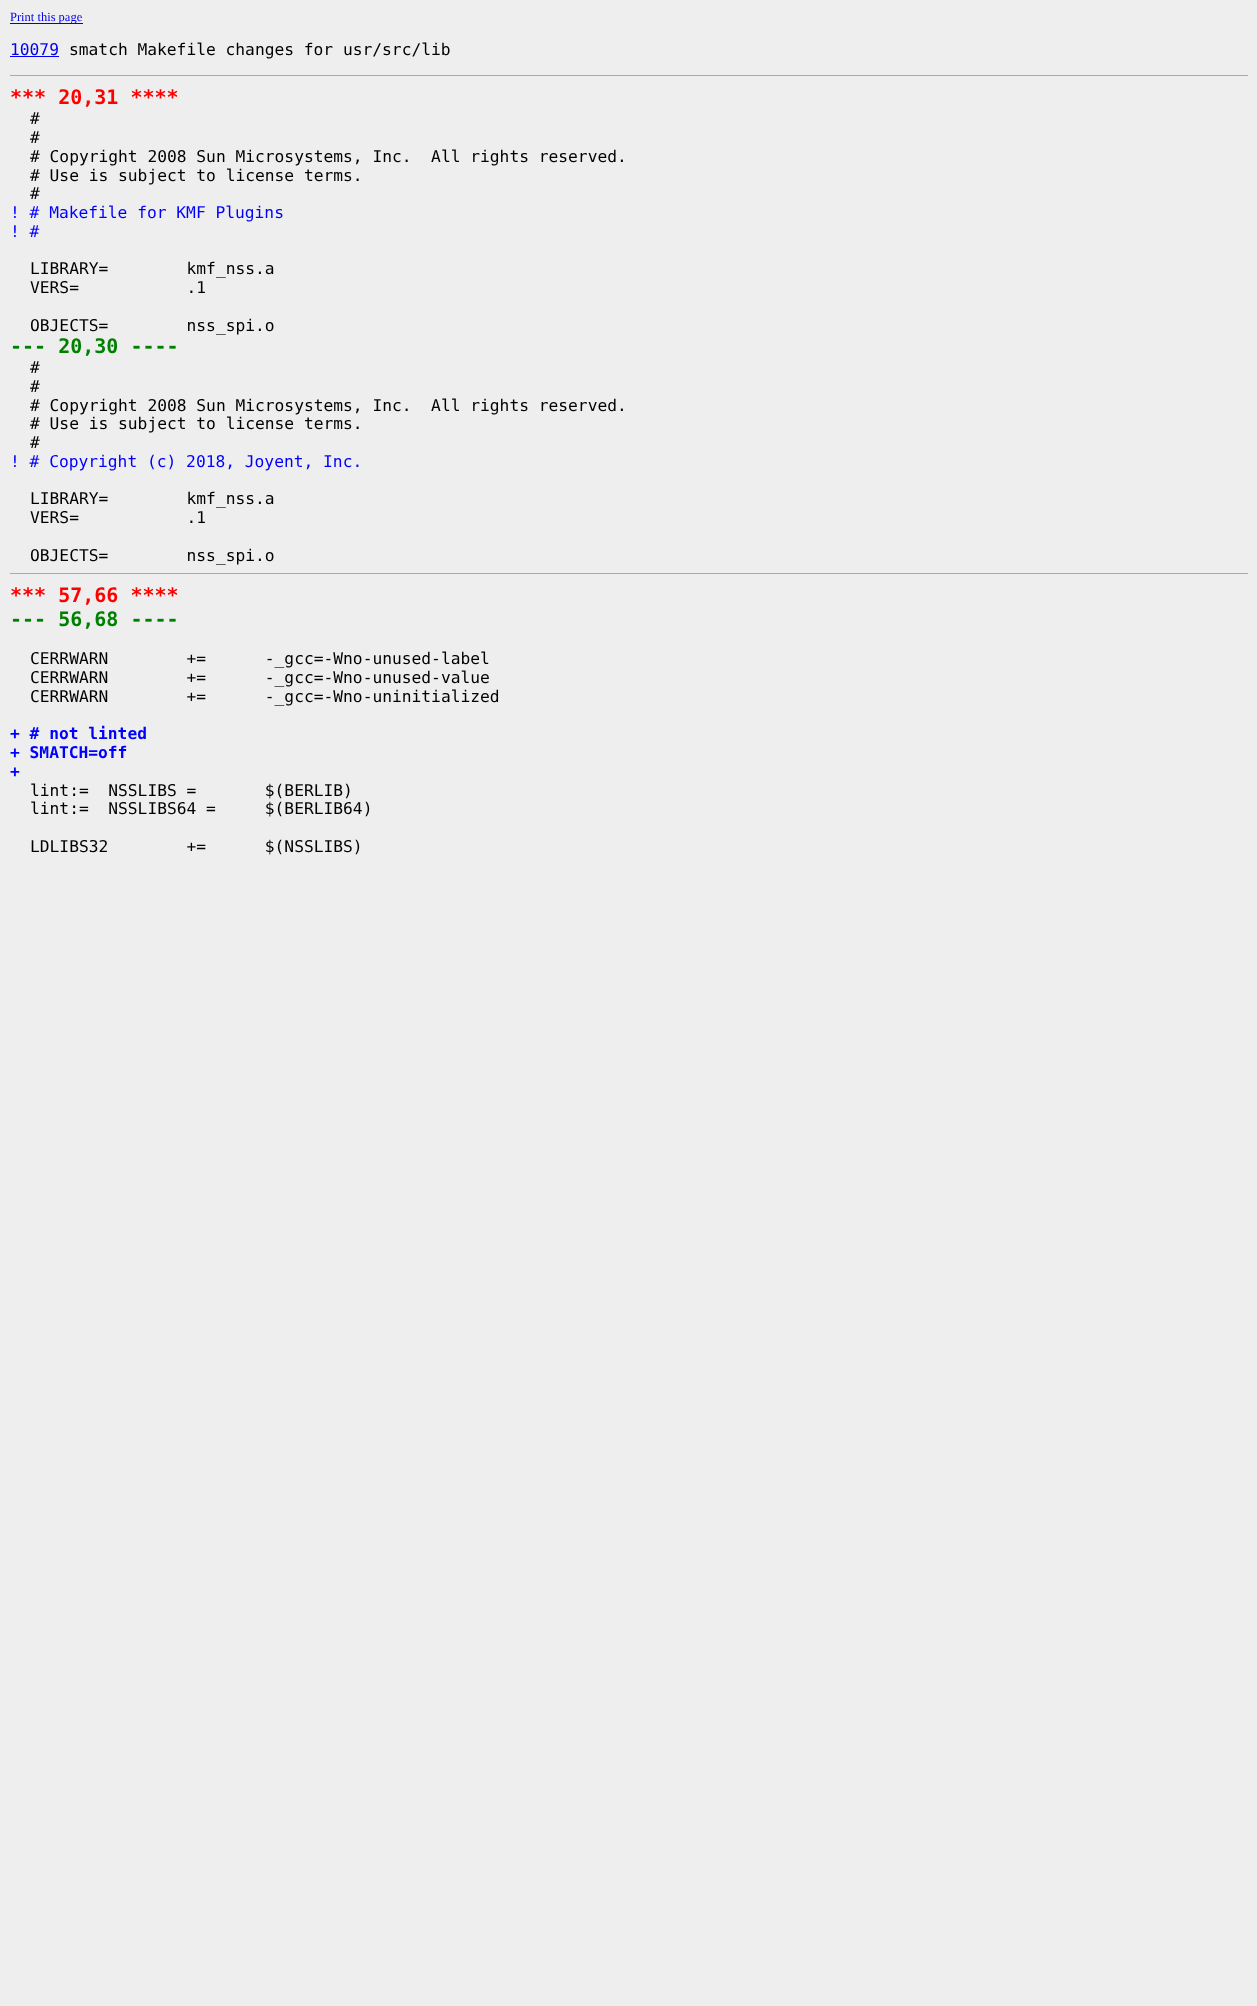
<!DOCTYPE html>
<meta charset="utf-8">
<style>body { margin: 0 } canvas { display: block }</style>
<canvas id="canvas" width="1257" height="2006"></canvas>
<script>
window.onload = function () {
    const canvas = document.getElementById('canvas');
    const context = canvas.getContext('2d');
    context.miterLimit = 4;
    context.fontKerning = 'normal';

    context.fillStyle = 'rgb(238, 238, 238)';
    context.fillRect(0, 0, 1257, 2006);
    context.fillStyle = 'rgb(0, 0, 238)';
    context.fillRect(10, 23, 73, 1);
    context.fillRect(10, 56, 49, 1);
    context.fillStyle = 'rgb(170, 170, 170)';
    context.fillRect(10, 75, 1238, 1);
    context.fillRect(10, 573, 1238, 1);
    context.font = '12.5px Liberation Serif';
    context.fillStyle = 'rgb(0, 0, 238)';
    context.fillText('Print this page', 10, 21);
    context.font = '16.25px DejaVu Sans Mono';
    context.fillText('10079', 10, 55);
    context.fillStyle = 'rgb(0, 0, 0)';
    context.fillText('smatch Makefile changes for usr/src/lib', 69, 55);
    context.font = 'bold 20px DejaVu Sans Mono';
    context.fillStyle = 'rgb(255, 0, 0)';
    context.fillText('*** 20,31 ****', 10, 104);
    context.font = '16.25px DejaVu Sans Mono';
    context.fillStyle = 'rgb(0, 0, 0)';
    context.fillText('#', 30, 124);
    context.fillText('#', 30, 143);
    context.fillText('# Copyright 2008 Sun Microsystems, Inc.  All rights reserved.', 30, 162);
    context.fillText('# Use is subject to license terms.', 30, 181);
    context.fillText('#', 30, 199);
    context.fillStyle = 'rgb(0, 0, 255)';
    context.fillText('! # Makefile for KMF Plugins', 10, 218);
    context.fillText('! #', 10, 237);
    context.fillStyle = 'rgb(0, 0, 0)';
    context.fillText('LIBRARY=        kmf_nss.a', 30, 274);
    context.fillText('VERS=           .1', 30, 293);
    context.fillText('OBJECTS=        nss_spi.o', 30, 331);
    context.font = 'bold 20px DejaVu Sans Mono';
    context.fillStyle = 'rgb(0, 128, 0)';
    context.fillText('--- 20,30 ----', 10, 353);
    context.font = '16.25px DejaVu Sans Mono';
    context.fillStyle = 'rgb(0, 0, 0)';
    context.fillText('#', 30, 373);
    context.fillText('#', 30, 392);
    context.fillText('# Copyright 2008 Sun Microsystems, Inc.  All rights reserved.', 30, 411);
    context.fillText('# Use is subject to license terms.', 30, 429);
    context.fillText('#', 30, 448);
    context.fillStyle = 'rgb(0, 0, 255)';
    context.fillText('! # Copyright (c) 2018, Joyent, Inc.', 10, 467);
    context.fillStyle = 'rgb(0, 0, 0)';
    context.fillText('LIBRARY=        kmf_nss.a', 30, 504);
    context.fillText('VERS=           .1', 30, 523);
    context.fillText('OBJECTS=        nss_spi.o', 30, 561);
    context.font = 'bold 20px DejaVu Sans Mono';
    context.fillStyle = 'rgb(255, 0, 0)';
    context.fillText('*** 57,66 ****', 10, 602);
    context.fillStyle = 'rgb(0, 128, 0)';
    context.fillText('--- 56,68 ----', 10, 626);
    context.font = '16.25px DejaVu Sans Mono';
    context.fillStyle = 'rgb(0, 0, 0)';
    context.fillText('CERRWARN        +=      -_gcc=-Wno-unused-label', 30, 664);
    context.fillText('CERRWARN        +=      -_gcc=-Wno-unused-value', 30, 683);
    context.fillText('CERRWARN        +=      -_gcc=-Wno-uninitialized', 30, 702);
    context.font = 'bold 16.25px DejaVu Sans Mono';
    context.fillStyle = 'rgb(0, 0, 255)';
    context.fillText('+ # not linted', 10, 739);
    context.fillText('+ SMATCH=off', 10, 758);
    context.fillText('+', 10, 777);
    context.font = '16.25px DejaVu Sans Mono';
    context.fillStyle = 'rgb(0, 0, 0)';
    context.fillText('lint:=  NSSLIBS =       $(BERLIB)', 30, 796);
    context.fillText('lint:=  NSSLIBS64 =     $(BERLIB64)', 30, 814);
    context.fillText('LDLIBS32        +=      $(NSSLIBS)', 30, 852);
};
</script>
